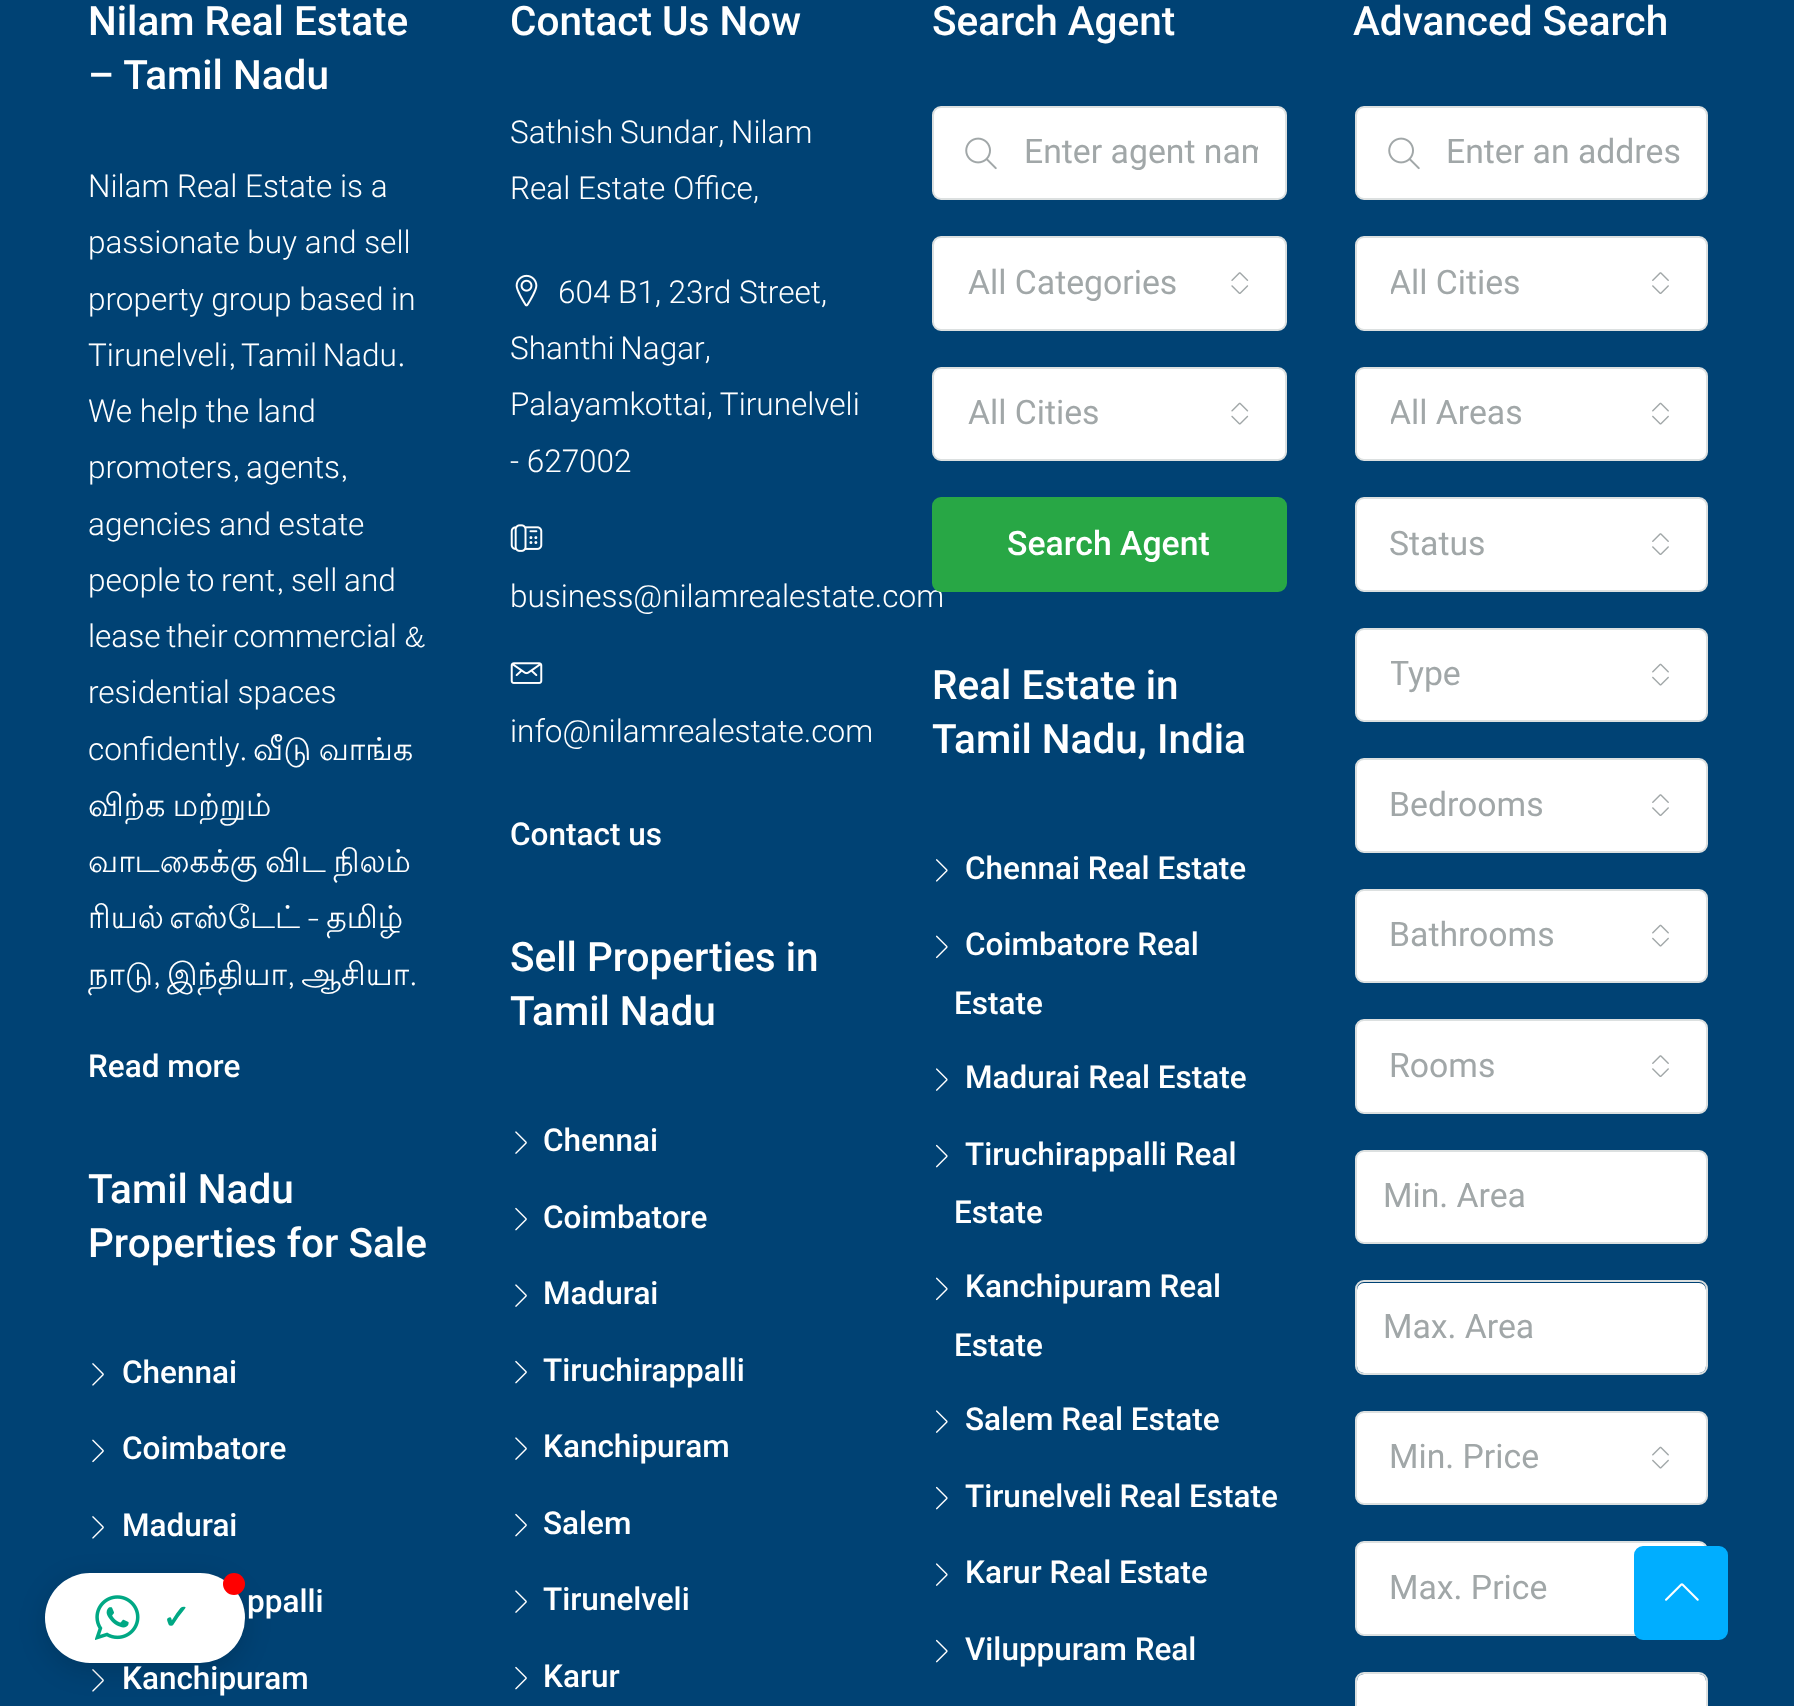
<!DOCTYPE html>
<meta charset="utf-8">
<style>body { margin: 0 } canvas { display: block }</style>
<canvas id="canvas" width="1794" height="1706"></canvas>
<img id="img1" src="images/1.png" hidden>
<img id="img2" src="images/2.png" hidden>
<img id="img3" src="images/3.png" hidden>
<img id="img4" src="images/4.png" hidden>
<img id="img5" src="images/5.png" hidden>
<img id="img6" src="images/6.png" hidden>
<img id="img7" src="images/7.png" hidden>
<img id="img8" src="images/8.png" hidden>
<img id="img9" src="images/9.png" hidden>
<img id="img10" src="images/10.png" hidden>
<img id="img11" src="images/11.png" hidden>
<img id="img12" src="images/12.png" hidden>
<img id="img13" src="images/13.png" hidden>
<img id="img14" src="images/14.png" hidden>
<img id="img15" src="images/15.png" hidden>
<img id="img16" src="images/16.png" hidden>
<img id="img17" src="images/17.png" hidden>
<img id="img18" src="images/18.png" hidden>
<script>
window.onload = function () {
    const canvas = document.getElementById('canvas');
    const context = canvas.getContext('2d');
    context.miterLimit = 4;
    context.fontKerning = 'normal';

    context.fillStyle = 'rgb(0, 66, 116)';
    context.fillRect(0, 0, 1794, 1706);
    context.drawImage(document.getElementById('img1'), 92, 1363, 12, 23);
    context.drawImage(document.getElementById('img2'), 92, 1439, 12, 24);
    context.drawImage(document.getElementById('img1'), 92, 1516, 12, 23);
    context.drawImage(document.getElementById('img1'), 92, 1669, 12, 23);
    context.drawImage(document.getElementById('img3'), 515, 274, 23, 33);
    context.drawImage(document.getElementById('img4'), 510, 524, 33, 28);
    context.drawImage(document.getElementById('img5'), 510, 662, 33, 22);
    context.drawImage(document.getElementById('img6'), 515, 1131, 12, 23);
    context.drawImage(document.getElementById('img7'), 515, 1207, 12, 24);
    context.drawImage(document.getElementById('img6'), 515, 1284, 12, 23);
    context.drawImage(document.getElementById('img7'), 515, 1360, 12, 24);
    context.drawImage(document.getElementById('img6'), 515, 1437, 12, 23);
    context.drawImage(document.getElementById('img7'), 515, 1513, 12, 24);
    context.drawImage(document.getElementById('img6'), 515, 1590, 12, 23);
    context.drawImage(document.getElementById('img7'), 515, 1666, 12, 24);
    context.fillStyle = 'rgb(255, 255, 255)';
    context.beginPath();
    context.roundRect(933, 107, 353, 92, 8);
    context.fill();
    context.strokeStyle = 'rgb(220, 224, 224)';
    context.lineWidth = 2;
    context.stroke();
    context.drawImage(document.getElementById('img8'), 965, 137, 32, 33);
    context.beginPath();
    context.roundRect(933, 237, 353, 93, 8);
    context.fill();
    context.stroke();
    context.drawImage(document.getElementById('img9'), 1231, 272, 18, 22);
    context.beginPath();
    context.roundRect(933, 368, 353, 92, 8);
    context.fill();
    context.stroke();
    context.drawImage(document.getElementById('img10'), 1231, 402, 18, 23);
    context.drawImage(document.getElementById('img11'), 936, 859, 12, 23);
    context.drawImage(document.getElementById('img12'), 936, 935, 12, 24);
    context.drawImage(document.getElementById('img13'), 936, 1068, 12, 23);
    context.drawImage(document.getElementById('img14'), 936, 1144, 12, 24);
    context.drawImage(document.getElementById('img12'), 936, 1277, 12, 24);
    context.drawImage(document.getElementById('img13'), 936, 1410, 12, 23);
    context.drawImage(document.getElementById('img14'), 936, 1486, 12, 24);
    context.drawImage(document.getElementById('img13'), 936, 1563, 12, 23);
    context.drawImage(document.getElementById('img14'), 936, 1639, 12, 24);
    context.beginPath();
    context.roundRect(1356, 107, 351, 92, 8);
    context.fill();
    context.stroke();
    context.drawImage(document.getElementById('img8'), 1388, 137, 32, 33);
    context.beginPath();
    context.roundRect(1356, 237, 351, 93, 8);
    context.fill();
    context.stroke();
    context.drawImage(document.getElementById('img15'), 1652, 272, 17, 22);
    context.beginPath();
    context.roundRect(1356, 368, 351, 92, 8);
    context.fill();
    context.stroke();
    context.drawImage(document.getElementById('img16'), 1652, 402, 17, 23);
    context.beginPath();
    context.roundRect(1356, 498, 351, 93, 8);
    context.fill();
    context.stroke();
    context.drawImage(document.getElementById('img15'), 1652, 533, 17, 22);
    context.beginPath();
    context.roundRect(1356, 629, 351, 92, 8);
    context.fill();
    context.stroke();
    context.drawImage(document.getElementById('img16'), 1652, 663, 17, 23);
    context.beginPath();
    context.roundRect(1356, 759, 351, 93, 8);
    context.fill();
    context.stroke();
    context.drawImage(document.getElementById('img15'), 1652, 794, 17, 22);
    context.beginPath();
    context.roundRect(1356, 890, 351, 92, 8);
    context.fill();
    context.stroke();
    context.drawImage(document.getElementById('img16'), 1652, 924, 17, 23);
    context.beginPath();
    context.roundRect(1356, 1020, 351, 93, 8);
    context.fill();
    context.stroke();
    context.drawImage(document.getElementById('img15'), 1652, 1055, 17, 22);
    context.beginPath();
    context.roundRect(1356, 1151, 351, 92, 8);
    context.fill();
    context.stroke();
    context.beginPath();
    context.roundRect(1357, 1283, 349, 90, 7);
    context.fill();
    context.beginPath();
    context.roundRect(1356, 1281, 351, 93, 8);
    context.stroke();
    context.beginPath();
    context.roundRect(1356, 1412, 351, 92, 8);
    context.fill();
    context.stroke();
    context.drawImage(document.getElementById('img16'), 1652, 1446, 17, 23);
    context.beginPath();
    context.roundRect(1356, 1542, 351, 93, 8);
    context.fill();
    context.stroke();
    context.beginPath();
    context.roundRect(1357, 1674, 349, 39, 7);
    context.fill();
    context.beginPath();
    context.roundRect(1356, 1673, 351, 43, 8);
    context.stroke();
    context.fillStyle = 'rgb(0, 174, 255)';
    context.beginPath();
    context.roundRect(1635, 1547, 92, 92, 8);
    context.fill();
    context.strokeStyle = 'rgb(0, 174, 255)';
    context.stroke();
    context.drawImage(document.getElementById('img17'), 1665, 1583, 34, 18);
    context.fillStyle = 'rgba(0, 0, 0, 0.15)';
    context.filter = 'blur(13.5px)';
    context.beginPath();
    context.roundRect(45, 1580, 200, 90, 45);
    context.fill();
    context.filter = 'none';
    context.fillStyle = 'rgb(255, 255, 255)';
    context.beginPath();
    context.roundRect(45, 1573, 200, 90, 45);
    context.fill();
    context.fillStyle = 'rgb(255, 0, 0)';
    context.beginPath();
    context.arc(234, 1584, 11, 0, 2 * Math.PI);
    context.fill();
    context.drawImage(document.getElementById('img18'), 95, 1595, 45, 45);
    context.font = '500 40.5px Roboto';
    context.fillStyle = 'rgb(255, 255, 255)';
    context.fillText('Nilam Real Estate', 88, 35);
    context.fillText('– Tamil Nadu', 88, 89);
    context.font = '300 31.5px Roboto';
    context.fillText('Nilam Real Estate is a', 88, 197);
    context.fillText('passionate buy and sell', 88, 253);
    context.fillText('property group based in', 88, 310);
    context.fillText('Tirunelveli', 88, 366);
    context.font = '31.5px Lohit Tamil';
    context.fillText(',', 228, 366);
    context.wordSpacing = '-2px';
    context.font = '300 31.5px Roboto';
    context.fillText('Tamil Nadu', 241, 366);
    context.wordSpacing = '0px';
    context.font = '31.5px Lohit Tamil';
    context.fillText('.', 397, 366);
    context.font = '300 31.5px Roboto';
    context.fillText('We help the land', 88, 422);
    context.fillText('promoters', 88, 478);
    context.font = '31.5px Lohit Tamil';
    context.fillText(',', 232, 478);
    context.font = '300 31.5px Roboto';
    context.fillText('agents', 246, 478);
    context.font = '31.5px Lohit Tamil';
    context.fillText(',', 340, 478);
    context.font = '300 31.5px Roboto';
    context.fillText('agencies and estate', 88, 535);
    context.wordSpacing = '-1px';
    context.fillText('people to rent', 88, 591);
    context.wordSpacing = '0px';
    context.font = '31.5px Lohit Tamil';
    context.fillText(',', 276, 591);
    context.wordSpacing = '-1px';
    context.font = '300 31.5px Roboto';
    context.fillText('sell and', 291, 591);
    context.wordSpacing = '-2px';
    context.fillText('lease their commercial', 88, 647);
    context.wordSpacing = '0px';
    context.font = '31.5px Lohit Tamil';
    context.fillText('&', 403, 647);
    context.font = '300 31.5px Roboto';
    context.fillText('residential spaces', 88, 703);
    context.fillText('confidently', 88, 760);
    context.font = '31.5px Lohit Tamil';
    context.fillText('.', 239, 760);
    context.wordSpacing = '-2px';
    context.fillText('வீடு வாங்க', 253, 760);
    context.fillText('விற்க மற்றும்', 88, 816);
    context.fillText('வாடகைக்கு விட நிலம்', 88, 872);
    context.wordSpacing = '-4px';
    context.fillText('ரியல் எஸ்டேட் - தமிழ்', 88, 928);
    context.fillText('நாடு, இந்தியா, ஆசியா.', 88, 985);
    context.wordSpacing = '0px';
    context.font = '500 31.5px Roboto';
    context.fillText('Read more', 88, 1077);
    context.font = '500 40.5px Roboto';
    context.fillText('Tamil Nadu', 88, 1203);
    context.fillText('Properties for Sale', 88, 1257);
    context.font = '500 31.5px Roboto';
    context.fillText('Chennai', 122, 1383);
    context.fillText('Coimbatore', 122, 1459);
    context.fillText('Madurai', 122, 1536);
    context.fillText('ppalli', 247, 1612);
    context.fillText('Kanchipuram', 122, 1689);
    context.font = '500 40.5px Roboto';
    context.fillText('Contact Us Now', 510, 35);
    context.wordSpacing = '-1px';
    context.font = '300 31.5px Roboto';
    context.fillText('Sathish Sundar, Nilam', 510, 143);
    context.wordSpacing = '0px';
    context.fillText('Real Estate Office,', 510, 199);
    context.fillText('604 B1, 23rd Street,', 558, 303);
    context.wordSpacing = '-2px';
    context.fillText('Shanthi Nagar,', 510, 359);
    context.wordSpacing = '0px';
    context.fillText('Palayamkottai, Tirunelveli', 510, 415);
    context.fillText('- 627002', 510, 472);
    context.fillText('business@nilamrealestate.com', 510, 607);
    context.fillText('info@nilamrealestate.com', 510, 742);
    context.font = '500 31.5px Roboto';
    context.fillText('Contact us', 510, 845);
    context.font = '500 40.5px Roboto';
    context.fillText('Sell Properties in', 510, 971);
    context.fillText('Tamil Nadu', 510, 1025);
    context.font = '500 31.5px Roboto';
    context.fillText('Chennai', 543, 1151);
    context.fillText('Coimbatore', 543, 1228);
    context.fillText('Madurai', 543, 1304);
    context.fillText('Tiruchirappalli', 543, 1381);
    context.fillText('Kanchipuram', 543, 1457);
    context.fillText('Salem', 543, 1534);
    context.fillText('Tirunelveli', 543, 1610);
    context.fillText('Karur', 543, 1687);
    context.font = '500 40.5px Roboto';
    context.fillText('Search Agent', 932, 35);
    context.save();
    context.beginPath();
    context.rect(1024, 133, 234, 40);
    context.clip();
    context.font = '33.75px Roboto';
    context.fillStyle = 'rgb(161, 167, 168)';
    context.fillText('Enter agent nam', 1024, 163);
    context.restore();
    context.font = '33.75px Roboto';
    context.fillStyle = 'rgb(161, 167, 168)';
    context.fillText('All Categories', 968, 294);
    context.fillText('All Cities', 968, 424);
    context.fillStyle = 'rgb(40, 167, 69)';
    context.beginPath();
    context.roundRect(933, 498, 353, 93, 8);
    context.fill();
    context.strokeStyle = 'rgb(40, 167, 69)';
    context.stroke();
    context.font = '500 33.75px Roboto';
    context.fillStyle = 'rgb(255, 255, 255)';
    context.fillText('Search Agent', 1007, 555);
    context.font = '500 40.5px Roboto';
    context.fillText('Real Estate in', 932, 699);
    context.fillText('Tamil Nadu, India', 932, 753);
    context.font = '500 31.5px Roboto';
    context.fillText('Chennai Real Estate', 965, 879);
    context.fillText('Coimbatore Real', 965, 955);
    context.fillText('Estate', 954, 1014);
    context.fillText('Madurai Real Estate', 965, 1088);
    context.fillText('Tiruchirappalli Real', 965, 1165);
    context.fillText('Estate', 954, 1223);
    context.fillText('Kanchipuram Real', 965, 1297);
    context.fillText('Estate', 954, 1356);
    context.fillText('Salem Real Estate', 965, 1430);
    context.fillText('Tirunelveli Real Estate', 965, 1507);
    context.fillText('Karur Real Estate', 965, 1583);
    context.fillText('Viluppuram Real', 965, 1660);
    context.font = '500 40.5px Roboto';
    context.fillText('Advanced Search', 1353, 35);
    context.font = '33.75px Roboto';
    context.fillStyle = 'rgb(161, 167, 168)';
    context.fillText('Enter an addres', 1446, 163);
    context.save();
    context.beginPath();
    context.rect(1391, 239, 225, 90);
    context.clip();
    context.fillText('All Cities', 1389, 294);
    context.restore();
    context.save();
    context.beginPath();
    context.rect(1391, 369, 225, 90);
    context.clip();
    context.fillText('All Areas', 1389, 424);
    context.restore();
    context.fillText('Status', 1389, 555);
    context.save();
    context.beginPath();
    context.rect(1391, 630, 225, 90);
    context.clip();
    context.fillText('Type', 1389, 685);
    context.restore();
    context.fillText('Bedrooms', 1389, 816);
    context.fillText('Bathrooms', 1389, 946);
    context.fillText('Rooms', 1389, 1077);
    context.fillText('Min. Area', 1383, 1207);
    context.fillText('Max. Area', 1383, 1338);
    context.fillText('Min. Price', 1389, 1468);
    context.fillText('Max. Price', 1389, 1599);
    context.font = 'bold 33.75px DejaVu Sans';
    context.fillStyle = 'rgb(0, 168, 132)';
    context.fillText('✓', 162, 1629);
};
</script>
